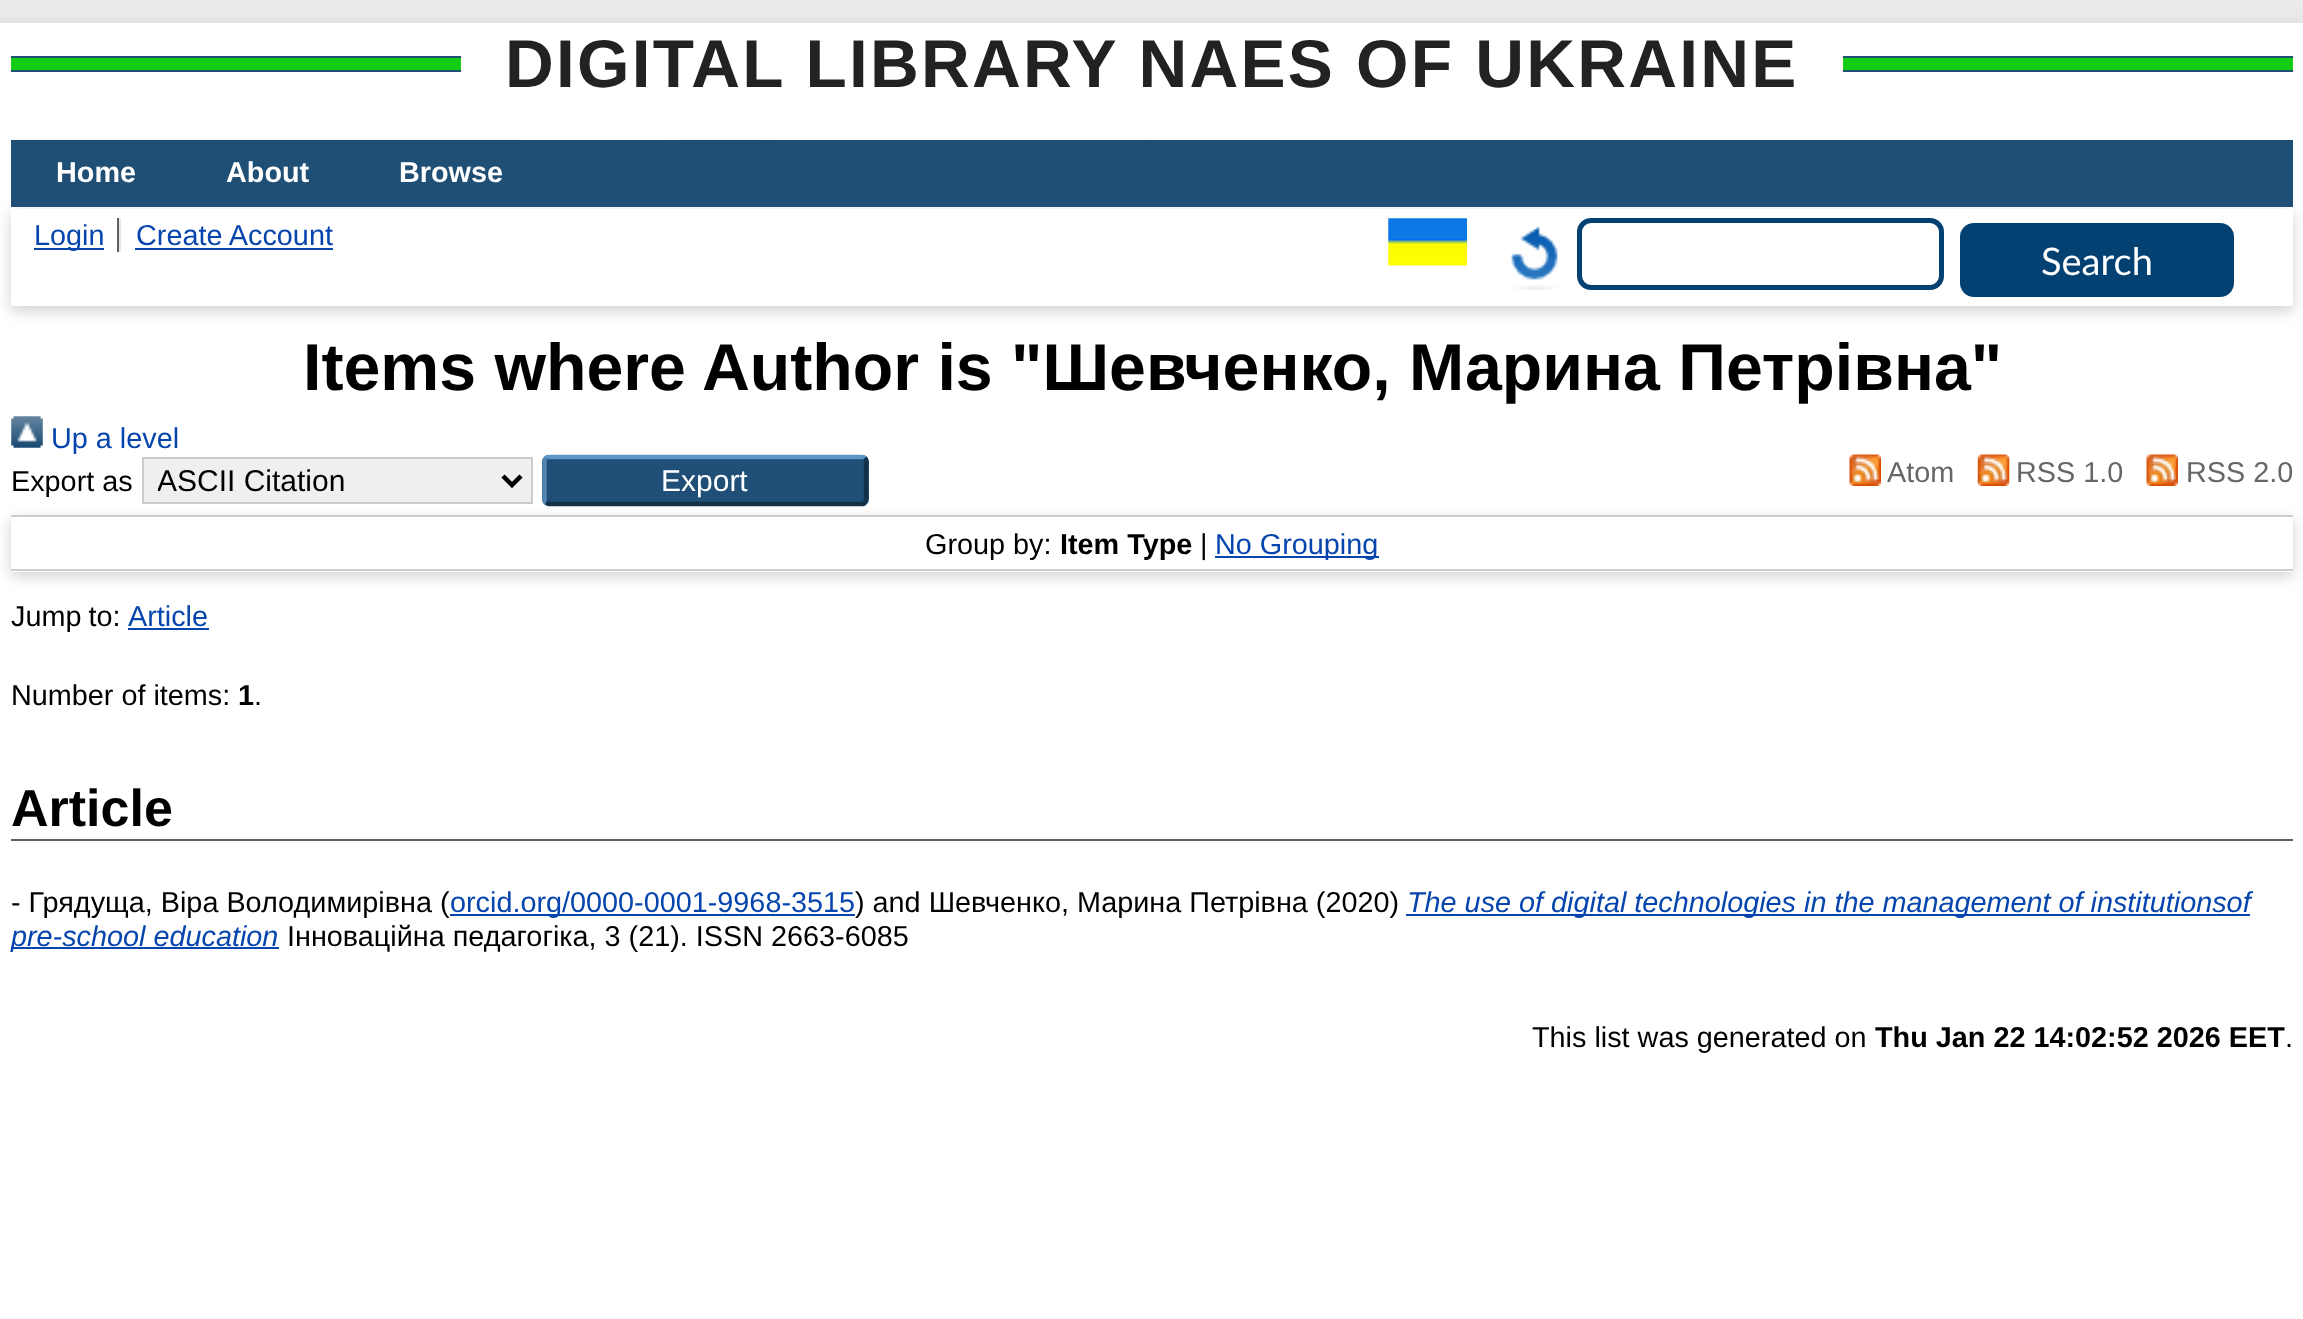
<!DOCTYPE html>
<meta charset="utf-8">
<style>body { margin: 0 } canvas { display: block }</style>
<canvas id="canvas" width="2303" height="1319"></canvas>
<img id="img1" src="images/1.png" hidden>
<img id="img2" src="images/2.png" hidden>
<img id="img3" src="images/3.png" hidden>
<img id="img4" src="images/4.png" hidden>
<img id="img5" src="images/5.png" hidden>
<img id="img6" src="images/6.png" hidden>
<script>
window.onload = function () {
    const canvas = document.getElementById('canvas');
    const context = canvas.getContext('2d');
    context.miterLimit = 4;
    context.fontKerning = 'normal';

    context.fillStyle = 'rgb(234, 234, 234)';
    context.fillRect(0, 0, 2303, 1319);
    context.fillStyle = 'rgba(100, 100, 100, 0.3)';
    context.filter = 'blur(7px)';
    context.beginPath();
    context.rect(0, 27, 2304, 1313);
    context.fill();
    context.filter = 'none';
    context.fillStyle = 'rgb(255, 255, 255)';
    context.fillRect(0, 23, 2303, 1296);
    context.fillStyle = 'rgb(18, 206, 21)';
    context.fillRect(11, 58, 450, 12);
    context.fillStyle = 'rgb(32, 79, 118)';
    context.fillRect(11, 56, 450, 2);
    context.fillRect(11, 70, 450, 2);
    context.fillStyle = 'rgb(18, 206, 21)';
    context.fillRect(1843, 58, 450, 12);
    context.fillStyle = 'rgb(32, 79, 118)';
    context.fillRect(1843, 56, 450, 2);
    context.fillRect(1843, 70, 450, 2);
    context.drawImage(document.getElementById('img1'), 11, 139, 1271, 1);
    context.fillRect(11, 140, 2282, 67);
    context.fillStyle = 'rgba(100, 100, 100, 0.3)';
    context.filter = 'blur(7px)';
    context.beginPath();
    context.rect(11, 214, 2282, 97);
    context.fill();
    context.filter = 'none';
    context.fillStyle = 'rgb(255, 255, 255)';
    context.fillRect(11, 209, 2282, 97);
    context.fillStyle = 'rgb(96, 96, 96)';
    context.fillRect(117, 218, 2, 34);
    context.fillStyle = 'rgb(6, 69, 173)';
    context.fillRect(34, 248, 70, 2);
    context.fillStyle = 'rgb(232, 232, 232)';
    context.fillRect(119, 218, 2, 34);
    context.fillStyle = 'rgb(6, 69, 173)';
    context.fillRect(135, 248, 198, 2);
    context.drawImage(document.getElementById('img2'), 1388, 218, 79, 48);
    context.drawImage(document.getElementById('img3'), 1511, 226, 47, 64);
    context.beginPath();
    context.roundRect(1579.5, 220.5, 362, 67, 11.5);
    context.strokeStyle = 'rgb(4, 65, 115)';
    context.lineWidth = 5;
    context.stroke();
    context.fillStyle = 'rgb(4, 65, 115)';
    context.beginPath();
    context.roundRect(1960, 223, 274, 74, 14);
    context.fill();
    context.drawImage(document.getElementById('img4'), 11, 416, 32, 32);
    context.fillStyle = 'rgba(100, 100, 100, 0.3)';
    context.filter = 'blur(7px)';
    context.beginPath();
    context.rect(11, 520, 2282, 56);
    context.fill();
    context.filter = 'none';
    context.fillStyle = 'rgb(239, 239, 239)';
    context.beginPath();
    context.rect(143, 458, 389, 45);
    context.fill();
    context.strokeStyle = 'rgb(204, 204, 204)';
    context.lineWidth = 2;
    context.stroke();
    context.beginPath();
    context.moveTo(503, 476);
    context.lineTo(512, 485);
    context.lineTo(521, 476);
    context.strokeStyle = 'rgb(0, 0, 0)';
    context.lineWidth = 4.5;
    context.stroke();
    context.fillStyle = 'rgb(31, 79, 118)';
    context.beginPath();
    context.roundRect(542, 455, 327, 51, 7);
    context.fill();
    context.beginPath();
    context.moveTo(546, 458);
    context.bezierCurveTo(546.5, 457, 548, 457, 549, 457);
    context.lineTo(862, 457);
    context.bezierCurveTo(863, 457, 864, 457, 865, 458);
    context.strokeStyle = 'rgb(91, 151, 199)';
    context.stroke();
    context.beginPath();
    context.moveTo(865, 458);
    context.bezierCurveTo(867, 460.5, 866, 465, 866, 467.5);
    context.lineTo(866, 493);
    context.bezierCurveTo(866, 496.5, 867.5, 502.5, 863, 504);
    context.lineTo(549, 504);
    context.lineTo(546, 502.5);
    context.strokeStyle = 'rgb(19, 50, 74)';
    context.stroke();
    context.beginPath();
    context.moveTo(546, 502.5);
    context.bezierCurveTo(545, 502, 544.5, 500.5, 544.5, 499.5);
    context.lineTo(544.5, 461);
    context.bezierCurveTo(544.5, 460, 545, 459, 546, 458);
    context.strokeStyle = 'rgb(82, 135, 179)';
    context.stroke();
    context.drawImage(document.getElementById('img5'), 1849, 454, 32, 32);
    context.drawImage(document.getElementById('img6'), 1977, 454, 33, 32);
    context.drawImage(document.getElementById('img5'), 2146, 454, 32, 32);
    context.fillStyle = 'rgb(255, 255, 255)';
    context.fillRect(11, 517, 2282, 55);
    context.fillStyle = 'rgb(204, 204, 204)';
    context.fillRect(11, 515, 2282, 2);
    context.fillRect(11, 569, 2282, 2);
    context.fillStyle = 'rgb(6, 69, 173)';
    context.fillRect(1215, 556, 164, 2);
    context.fillRect(128, 628, 81, 2);
    context.fillStyle = 'rgb(96, 96, 96)';
    context.fillRect(11, 839, 2282, 2);
    context.fillStyle = 'rgb(6, 69, 173)';
    context.fillRect(450, 914, 405, 2);
    context.fillRect(1406, 914, 844, 2);
    context.fillRect(11, 947, 268, 2);
    context.letterSpacing = '2.25px';
    context.font = 'bold 67.5px Liberation Sans';
    context.fillStyle = 'rgb(34, 34, 34)';
    context.fillText('DIGITAL LIBRARY NAES OF UKRAINE', 505, 87);
    context.letterSpacing = '0px';
    context.font = 'bold 28.8px Liberation Sans';
    context.fillStyle = 'rgb(255, 255, 255)';
    context.fillText('Home', 56, 182);
    context.fillText('About', 226, 182);
    context.fillText('Browse', 399, 182);
    context.font = '28.8px Liberation Sans';
    context.fillStyle = 'rgb(6, 69, 173)';
    context.fillText('Login', 34, 245);
    context.fillText('Create Account', 136, 245);
    context.font = '38px Lato';
    context.fillStyle = 'rgb(255, 255, 255)';
    context.fillText('Search', 2041, 275);
    context.font = 'bold 66.25px Liberation Sans';
    context.fillStyle = 'rgb(0, 0, 0)';
    context.fillText('Items where Author is "Шевченко, Марина Петрівна"', 303, 390);
    context.font = '28.8px Liberation Sans';
    context.fillStyle = 'rgb(6, 69, 173)';
    context.fillText('Up a level', 51, 448);
    context.fillStyle = 'rgb(0, 0, 0)';
    context.fillText('Export as', 11, 491);
    context.save();
    context.beginPath();
    context.rect(158, 461, 333, 39);
    context.clip();
    context.font = '30px Liberation Sans';
    context.fillText('ASCII Citation', 157, 491);
    context.restore();
    context.font = '30px Liberation Sans';
    context.fillStyle = 'rgb(255, 255, 255)';
    context.fillText('Export', 661, 491);
    context.font = '28.8px Liberation Sans';
    context.fillStyle = 'rgb(102, 102, 102)';
    context.fillText('Atom', 1887, 482);
    context.fillText('RSS 1.0', 2016, 482);
    context.fillText('RSS 2.0', 2186, 482);
    context.fillStyle = 'rgb(0, 0, 0)';
    context.fillText('Group by:', 925, 554);
    context.font = 'bold 28.8px Liberation Sans';
    context.fillText('Item Type', 1060, 554);
    context.font = '28.8px Liberation Sans';
    context.fillText('|', 1200, 554);
    context.fillStyle = 'rgb(6, 69, 173)';
    context.fillText('No Grouping', 1215, 554);
    context.wordSpacing = '-1px';
    context.fillStyle = 'rgb(0, 0, 0)';
    context.fillText('Jump to:', 11, 626);
    context.wordSpacing = '0px';
    context.fillStyle = 'rgb(6, 69, 173)';
    context.fillText('Article', 128, 626);
    context.fillStyle = 'rgb(0, 0, 0)';
    context.fillText('Number of items:', 11, 705);
    context.font = 'bold 28.8px Liberation Sans';
    context.fillText('1', 238, 705);
    context.font = '28.8px Liberation Sans';
    context.fillText('.', 254, 705);
    context.font = 'bold 52px Liberation Sans';
    context.fillText('Article', 11, 826);
    context.font = '28.8px Liberation Sans';
    context.fillText('- Грядуща, Віра Володимирівна (', 11, 912);
    context.fillStyle = 'rgb(6, 69, 173)';
    context.fillText('orcid.org/0000-0001-9968-3515', 450, 912);
    context.fillStyle = 'rgb(0, 0, 0)';
    context.fillText(') and Шевченко, Марина Петрівна (2020)', 855, 912);
    context.font = 'italic 28.8px Liberation Sans';
    context.fillStyle = 'rgb(6, 69, 173)';
    context.fillText('The use of digital technologies in the management of institutionsof', 1407, 912);
    context.fillText('pre-school education', 11, 946);
    context.font = '28.8px Liberation Sans';
    context.fillStyle = 'rgb(0, 0, 0)';
    context.fillText('Інноваційна педагогіка, 3 (21). ISSN 2663-6085', 287, 946);
    context.fillText('This list was generated on', 1532, 1047);
    context.font = 'bold 28.8px Liberation Sans';
    context.fillText('Thu Jan 22 14:02:52 2026 EET', 1875, 1047);
    context.font = '28.8px Liberation Sans';
    context.fillText('.', 2285, 1047);
};
</script>
